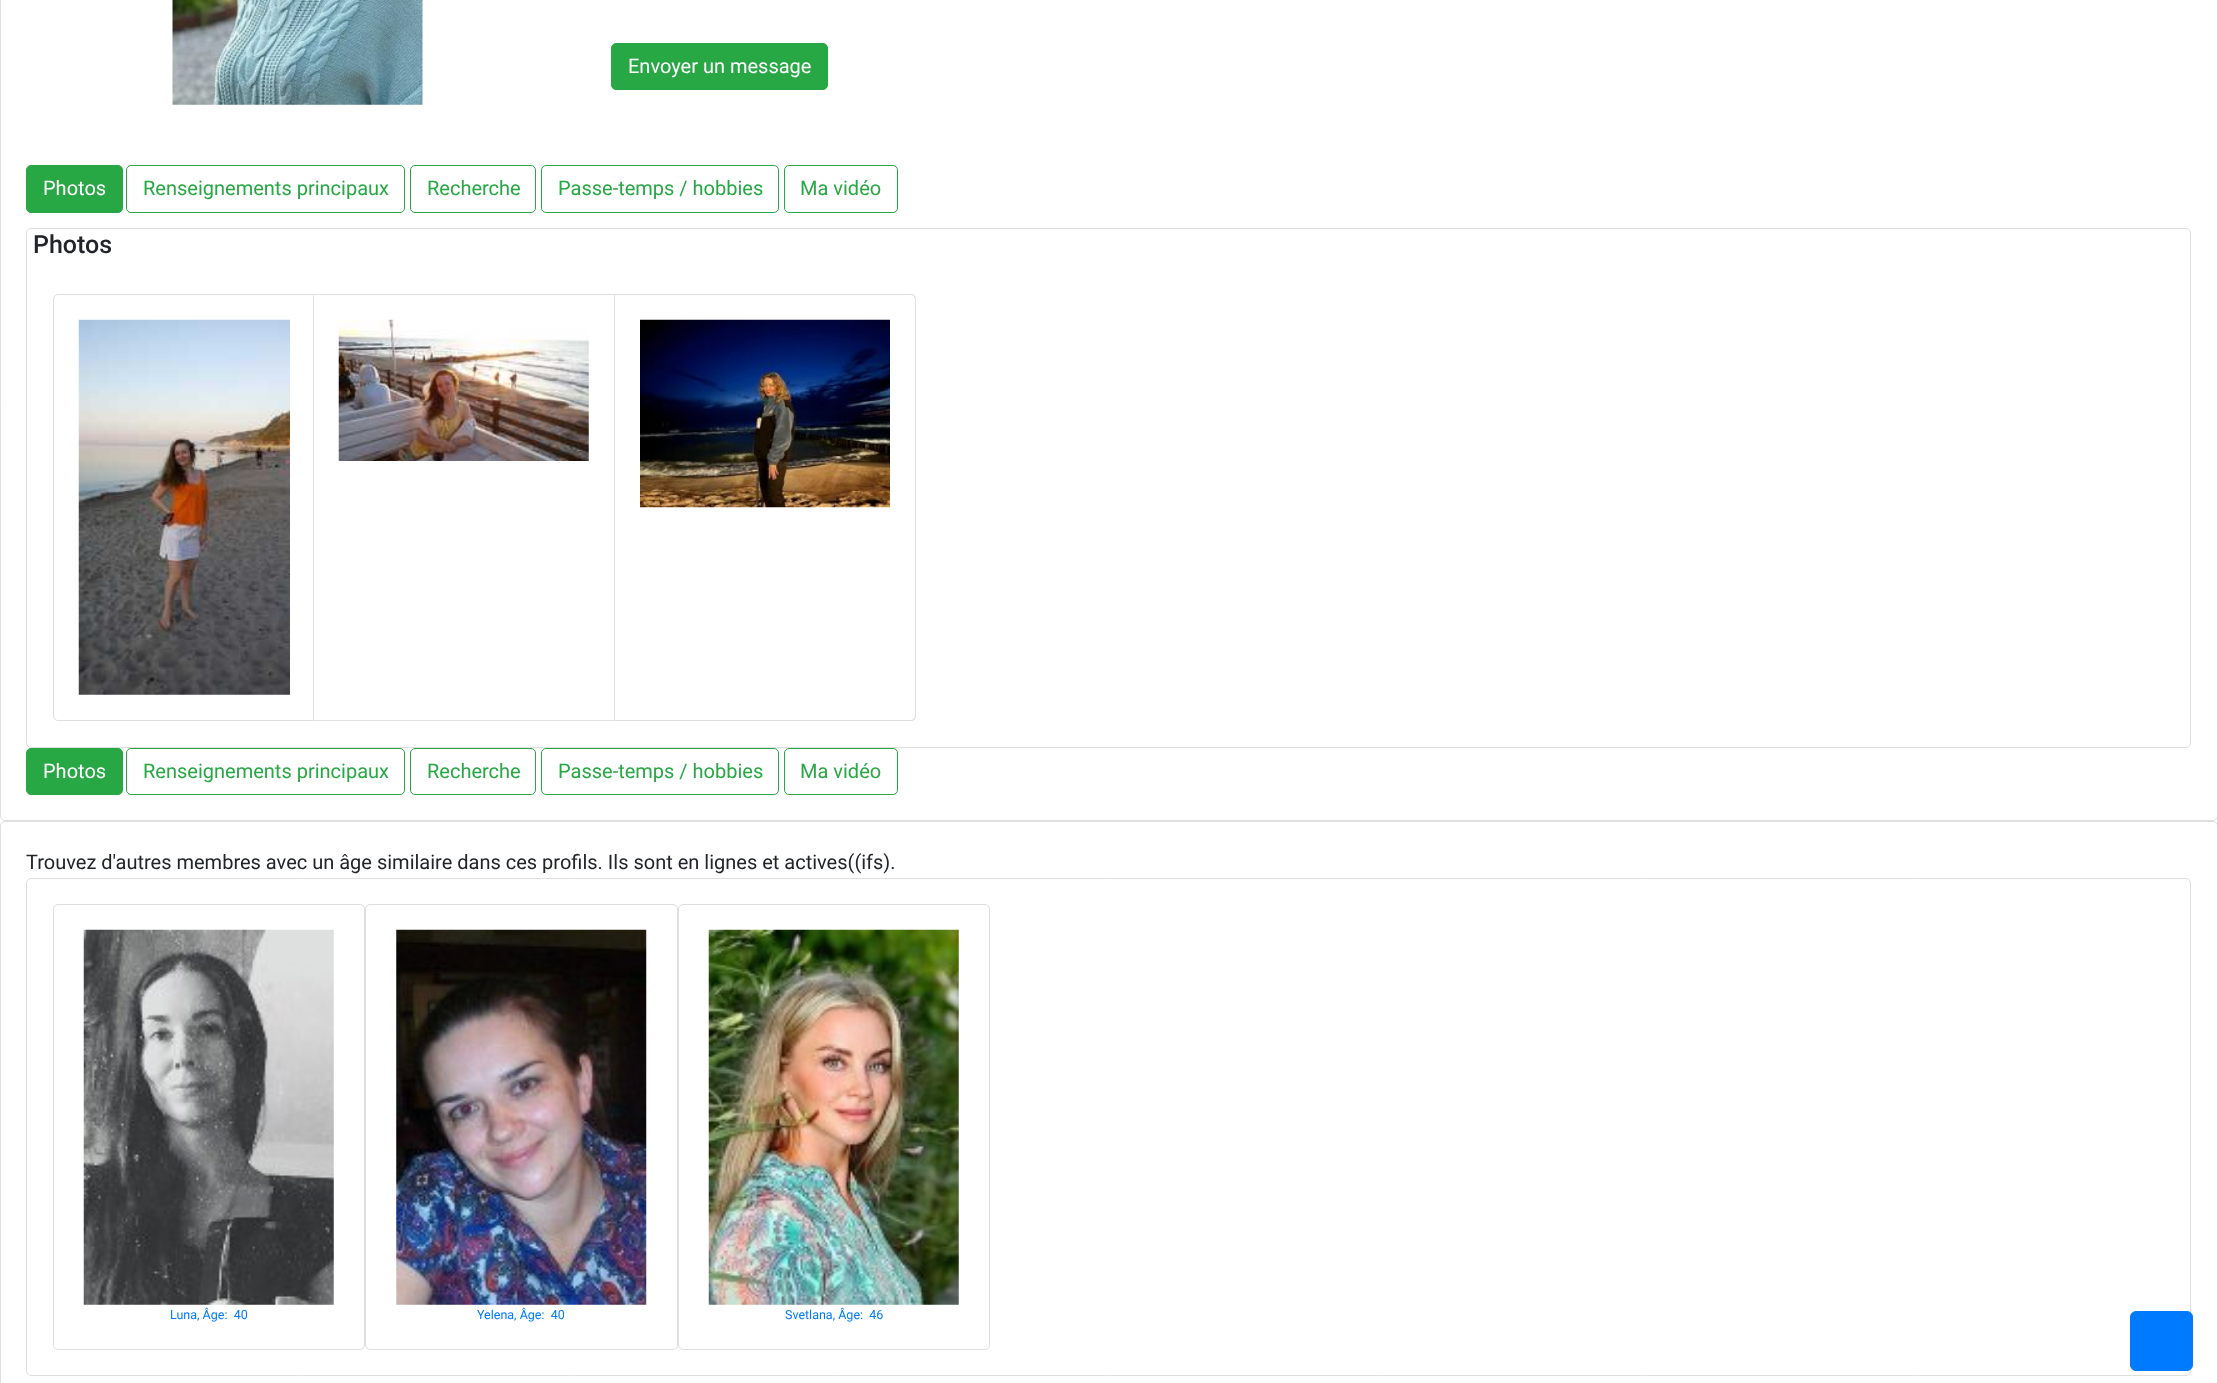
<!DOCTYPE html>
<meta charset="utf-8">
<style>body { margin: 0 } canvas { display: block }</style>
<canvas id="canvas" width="2217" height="1383"></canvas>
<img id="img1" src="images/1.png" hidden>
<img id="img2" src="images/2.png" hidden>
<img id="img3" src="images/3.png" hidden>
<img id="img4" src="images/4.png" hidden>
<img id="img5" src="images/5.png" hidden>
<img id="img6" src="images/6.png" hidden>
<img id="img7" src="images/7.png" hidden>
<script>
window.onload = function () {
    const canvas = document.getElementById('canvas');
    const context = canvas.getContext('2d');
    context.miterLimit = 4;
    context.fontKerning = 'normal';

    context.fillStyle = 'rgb(255, 255, 255)';
    context.fillRect(0, 0, 2217, 1383);
    context.beginPath();
    context.roundRect(0.5, -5.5, 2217, 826, 4.5);
    context.strokeStyle = 'rgb(223, 223, 223)';
    context.stroke();
    context.drawImage(document.getElementById('img1'), 172, 0, 251, 105);
    context.fillStyle = 'rgb(40, 167, 69)';
    context.beginPath();
    context.roundRect(611.5, 43.5, 216, 46, 4.5);
    context.fill();
    context.strokeStyle = 'rgb(40, 167, 69)';
    context.stroke();
    context.beginPath();
    context.roundRect(26.5, 165.5, 96, 47, 4.5);
    context.fill();
    context.stroke();
    context.beginPath();
    context.roundRect(126.5, 165.5, 278, 47, 4.5);
    context.stroke();
    context.beginPath();
    context.roundRect(410.5, 165.5, 125, 47, 4.5);
    context.stroke();
    context.beginPath();
    context.roundRect(541.5, 165.5, 237, 47, 4.5);
    context.stroke();
    context.beginPath();
    context.roundRect(784.5, 165.5, 113, 47, 4.5);
    context.stroke();
    context.beginPath();
    context.roundRect(26.5, 228.5, 2164, 519, 4.5);
    context.strokeStyle = 'rgb(223, 223, 223)';
    context.stroke();
    context.beginPath();
    context.roundRect(53.5, 294.5, 260, 426, [4.5, 0, 0, 4.5]);
    context.stroke();
    context.drawImage(document.getElementById('img2'), 78, 319, 212, 376);
    context.fillStyle = 'rgb(223, 223, 223)';
    context.beginPath();
    context.moveTo(314, 294);
    context.lineTo(615, 294);
    context.lineTo(614, 295);
    context.lineTo(314, 295);
    context.closePath();
    context.fill();
    context.fillStyle = 'rgba(0, 0, 0, 0.12)';
    context.beginPath();
    context.moveTo(615, 294);
    context.lineTo(615, 721);
    context.lineTo(614, 720);
    context.lineTo(614, 295);
    context.closePath();
    context.fill();
    context.beginPath();
    context.moveTo(615, 721);
    context.lineTo(314, 721);
    context.lineTo(314, 720);
    context.lineTo(614, 720);
    context.closePath();
    context.fill();
    context.drawImage(document.getElementById('img3'), 338, 319, 251, 142);
    context.fillStyle = 'rgb(223, 223, 223)';
    context.beginPath();
    context.moveTo(615, 294);
    context.lineTo(911, 294);
    context.bezierCurveTo(914, 294, 916, 296, 916, 299);
    context.lineTo(916, 716);
    context.bezierCurveTo(916, 719, 914, 721, 911, 721);
    context.lineTo(615, 721);
    context.closePath();
    context.moveTo(615, 295);
    context.lineTo(911, 295);
    context.bezierCurveTo(913, 295, 915, 297, 915, 299);
    context.lineTo(915, 716);
    context.bezierCurveTo(915, 718, 913, 720, 911, 720);
    context.lineTo(615, 720);
    context.closePath();
    context.fill('evenodd');
    context.drawImage(document.getElementById('img4'), 640, 319, 250, 189);
    context.fillStyle = 'rgb(40, 167, 69)';
    context.beginPath();
    context.roundRect(26.5, 748.5, 96, 46, 4.5);
    context.fill();
    context.strokeStyle = 'rgb(40, 167, 69)';
    context.stroke();
    context.beginPath();
    context.roundRect(126.5, 748.5, 278, 46, 4.5);
    context.stroke();
    context.beginPath();
    context.roundRect(410.5, 748.5, 125, 46, 4.5);
    context.stroke();
    context.beginPath();
    context.roundRect(541.5, 748.5, 237, 46, 4.5);
    context.stroke();
    context.beginPath();
    context.roundRect(784.5, 748.5, 113, 46, 4.5);
    context.stroke();
    context.beginPath();
    context.roundRect(0.5, 821.5, 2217, 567, 4.5);
    context.strokeStyle = 'rgb(223, 223, 223)';
    context.stroke();
    context.beginPath();
    context.roundRect(26.5, 878.5, 2164, 497, 4.5);
    context.stroke();
    context.beginPath();
    context.roundRect(53.5, 904.5, 311, 445, 4.5);
    context.stroke();
    context.drawImage(document.getElementById('img5'), 83, 929, 251, 376);
    context.beginPath();
    context.roundRect(365.5, 904.5, 312, 445, 4.5);
    context.stroke();
    context.drawImage(document.getElementById('img6'), 396, 929, 251, 376);
    context.beginPath();
    context.roundRect(678.5, 904.5, 311, 445, 4.5);
    context.stroke();
    context.drawImage(document.getElementById('img7'), 708, 929, 251, 376);
    context.fillStyle = 'rgb(0, 123, 255)';
    context.beginPath();
    context.roundRect(2130.5, 1311.5, 62, 59, 5.5);
    context.fill();
    context.strokeStyle = 'rgb(0, 123, 255)';
    context.stroke();
    context.font = '20px Roboto';
    context.fillStyle = 'rgb(255, 255, 255)';
    context.fillText('Envoyer un message', 628, 73);
    context.fillText('Photos', 43, 195);
    context.fillStyle = 'rgb(40, 167, 69)';
    context.fillText('Renseignements principaux', 143, 195);
    context.fillText('Recherche', 427, 195);
    context.fillText('Passe-temps / hobbies', 558, 195);
    context.fillText('Ma vidéo', 800, 195);
    context.font = '500 25px Roboto';
    context.fillStyle = 'rgb(33, 37, 41)';
    context.fillText('Photos', 33, 253);
    context.font = '20px Roboto';
    context.fillStyle = 'rgb(255, 255, 255)';
    context.fillText('Photos', 43, 778);
    context.fillStyle = 'rgb(40, 167, 69)';
    context.fillText('Renseignements principaux', 143, 778);
    context.fillText('Recherche', 427, 778);
    context.fillText('Passe-temps / hobbies', 558, 778);
    context.fillText('Ma vidéo', 800, 778);
    context.fillStyle = 'rgb(33, 37, 41)';
    context.fillText('Trouvez d\'autres membres avec un âge similaire dans ces profils. Ils sont en lignes et actives((ifs).', 26, 869);
    context.font = '12.5px Roboto';
    context.fillStyle = 'rgb(0, 123, 255)';
    context.fillText('Luna, Âge:  40', 170, 1319);
    context.fillText('Yelena, Âge:  40', 477, 1319);
    context.fillText('Svetlana, Âge:  46', 785, 1319);
};
</script>
